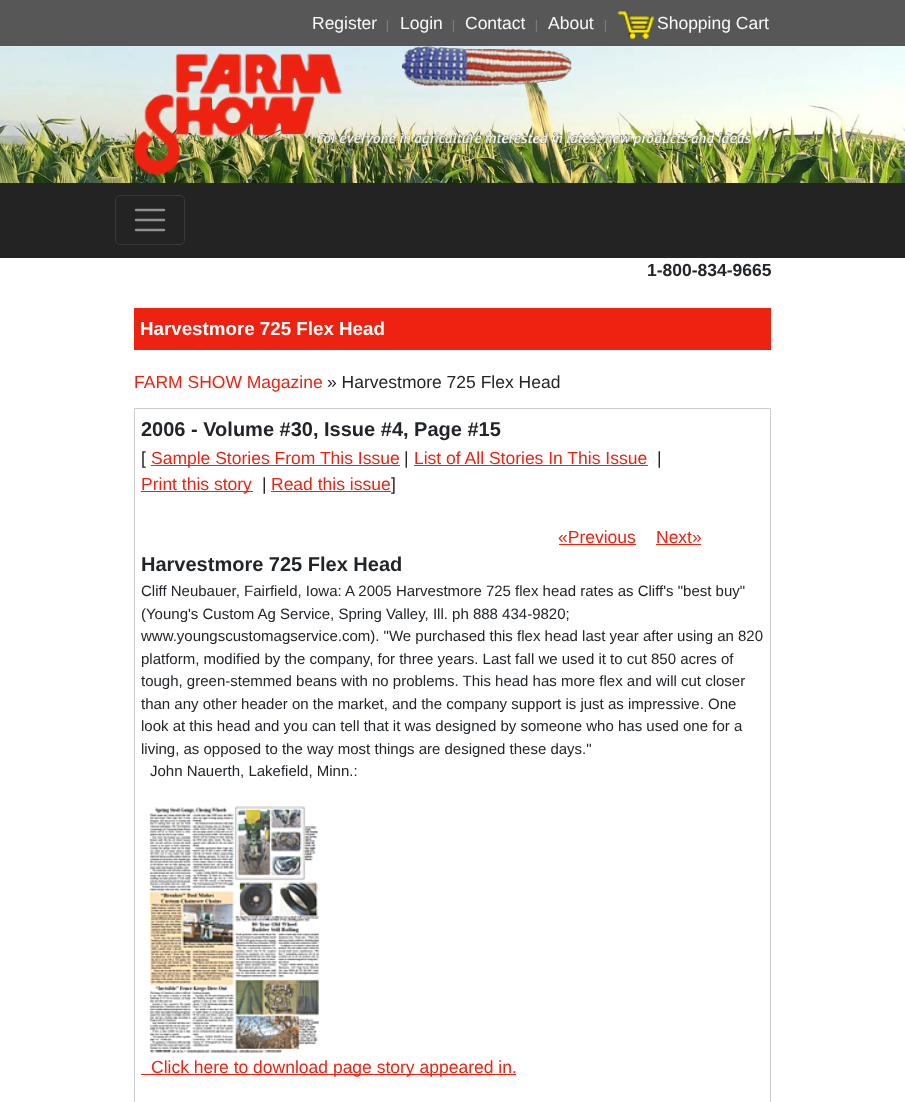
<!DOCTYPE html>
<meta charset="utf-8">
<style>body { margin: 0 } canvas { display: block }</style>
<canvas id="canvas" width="905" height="1102"></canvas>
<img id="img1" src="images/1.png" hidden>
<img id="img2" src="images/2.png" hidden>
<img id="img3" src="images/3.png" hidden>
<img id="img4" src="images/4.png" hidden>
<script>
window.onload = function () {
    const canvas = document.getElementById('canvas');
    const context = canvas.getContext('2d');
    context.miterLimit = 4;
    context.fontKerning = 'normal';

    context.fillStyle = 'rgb(255, 255, 255)';
    context.fillRect(0, 0, 905, 1102);
    context.fillStyle = 'rgb(87, 87, 87)';
    context.fillRect(0, 0, 905, 45);
    context.fillStyle = 'rgb(84, 84, 84)';
    context.fillRect(0, 45, 905, 1);
    context.drawImage(document.getElementById('img1'), 617, 11, 37, 28);
    context.drawImage(document.getElementById('img2'), 0, 46, 905, 137);
    context.drawImage(document.getElementById('img3'), 133, 46, 619, 129);
    context.fillStyle = 'rgb(35, 35, 35)';
    context.fillRect(0, 183, 905, 75);
    context.beginPath();
    context.roundRect(115.5, 195.5, 69, 49, 4.5);
    context.strokeStyle = 'rgb(57, 57, 57)';
    context.stroke();
    context.beginPath();
    context.moveTo(136, 210);
    context.lineTo(164, 210);
    context.moveTo(136, 220);
    context.lineTo(164, 220);
    context.moveTo(136, 230);
    context.lineTo(164, 230);
    context.strokeStyle = 'rgb(145, 145, 145)';
    context.lineWidth = 2.5;
    context.lineCap = 'round';
    context.stroke();
    context.fillStyle = 'rgb(238, 34, 16)';
    context.fillRect(134, 308, 637, 42);
    context.strokeStyle = 'rgb(204, 204, 204)';
    context.lineWidth = 1;
    context.strokeRect(134.5, 408.5, 636, 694);
    context.fillRect(151, 465, 249, 1);
    context.fillRect(414, 465, 234, 1);
    context.fillRect(141, 491, 112, 1);
    context.fillRect(271, 491, 120, 1);
    context.fillRect(559, 544, 77, 1);
    context.fillRect(656, 544, 45, 1);
    context.drawImage(document.getElementById('img4'), 149, 806, 171, 247);
    context.fillRect(141, 1074, 375, 1);
    context.font = '17.5px Liberation Sans';
    context.fillStyle = 'rgb(249, 249, 249)';
    context.fillText('Register', 312, 29);
    context.font = '12px Open Sans';
    context.fillStyle = 'rgb(137, 137, 137)';
    context.fillText('|', 384, 29);
    context.font = '17.5px Liberation Sans';
    context.fillStyle = 'rgb(249, 249, 249)';
    context.fillText('Login', 400, 29);
    context.font = '12px Open Sans';
    context.fillStyle = 'rgb(137, 137, 137)';
    context.fillText('|', 450, 29);
    context.font = '17.5px Liberation Sans';
    context.fillStyle = 'rgb(249, 249, 249)';
    context.fillText('Contact', 465, 29);
    context.font = '12px Open Sans';
    context.fillStyle = 'rgb(137, 137, 137)';
    context.fillText('|', 533, 29);
    context.font = '17.5px Liberation Sans';
    context.fillStyle = 'rgb(249, 249, 249)';
    context.fillText('About', 548, 29);
    context.font = '12px Open Sans';
    context.fillStyle = 'rgb(137, 137, 137)';
    context.fillText('|', 602, 29);
    context.font = '17.5px Liberation Sans';
    context.fillStyle = 'rgb(249, 249, 249)';
    context.fillText('Shopping Cart', 657, 29);
    context.font = 'bold 17.5px Liberation Sans';
    context.fillStyle = 'rgb(33, 37, 41)';
    context.fillText('1-800-834-9665', 647, 276);
    context.font = 'bold 18.75px Liberation Sans';
    context.fillStyle = 'rgb(255, 255, 255)';
    context.fillText('Harvestmore 725 Flex Head', 140, 335);
    context.font = '17.5px Liberation Sans';
    context.fillStyle = 'rgb(238, 34, 16)';
    context.fillText('FARM SHOW Magazine', 134, 388);
    context.fillStyle = 'rgb(33, 37, 41)';
    context.fillText('» Harvestmore 725 Flex Head', 327, 388);
    context.font = 'bold 20px Liberation Sans';
    context.fillText('2006 - Volume #30, Issue #4, Page #15', 141, 436);
    context.font = '17.5px Liberation Sans';
    context.fillText('[', 141, 464);
    context.fillStyle = 'rgb(238, 34, 16)';
    context.fillText('Sample Stories From This Issue', 151, 464);
    context.fillStyle = 'rgb(33, 37, 41)';
    context.fillText('|', 404, 464);
    context.fillStyle = 'rgb(238, 34, 16)';
    context.fillText('List of All Stories In This Issue', 414, 464);
    context.fillStyle = 'rgb(33, 37, 41)';
    context.fillText('|', 657, 464);
    context.fillStyle = 'rgb(238, 34, 16)';
    context.fillText('Print this story', 141, 490);
    context.fillStyle = 'rgb(33, 37, 41)';
    context.fillText('|', 262, 490);
    context.fillStyle = 'rgb(238, 34, 16)';
    context.fillText('Read this issue', 271, 490);
    context.fillStyle = 'rgb(33, 37, 41)';
    context.fillText(']', 391, 490);
    context.fillStyle = 'rgb(238, 34, 16)';
    context.fillText('«Previous', 558, 543);
    context.fillText('Next»', 656, 543);
    context.font = 'bold 20px Liberation Sans';
    context.fillStyle = 'rgb(33, 37, 41)';
    context.fillText('Harvestmore 725 Flex Head', 141, 571);
    context.font = '15px Liberation Sans';
    context.fillText('Cliff Neubauer, Fairfield, Iowa: A 2005 Harvestmore 725 flex head rates as Cliff\'s "best buy"', 141, 596);
    context.fillText('(Young\'s Custom Ag Service, Spring Valley, Ill. ph 888 434-9820;', 141, 619);
    context.fillText('www.youngscustomagservice.com). "We purchased this flex head last year after using an 820', 141, 641);
    context.fillText('platform, modified by the company, for three years. Last fall we used it to cut 850 acres of', 141, 664);
    context.fillText('tough, green-stemmed beans with no problems. This head has more flex and will cut closer', 141, 686);
    context.fillText('than any other header on the market, and the company support is just as impressive. One', 141, 709);
    context.fillText('look at this head and you can tell that it was designed by someone who has used one for a', 141, 731);
    context.fillText('living, as opposed to the way most things are designed these days."', 141, 754);
    context.fillText('John Nauerth, Lakefield, Minn.:', 150, 776);
    context.font = '17.5px Liberation Sans';
    context.fillStyle = 'rgb(238, 34, 16)';
    context.fillText('Click here to download page story appeared in.', 151, 1073);
};
</script>
